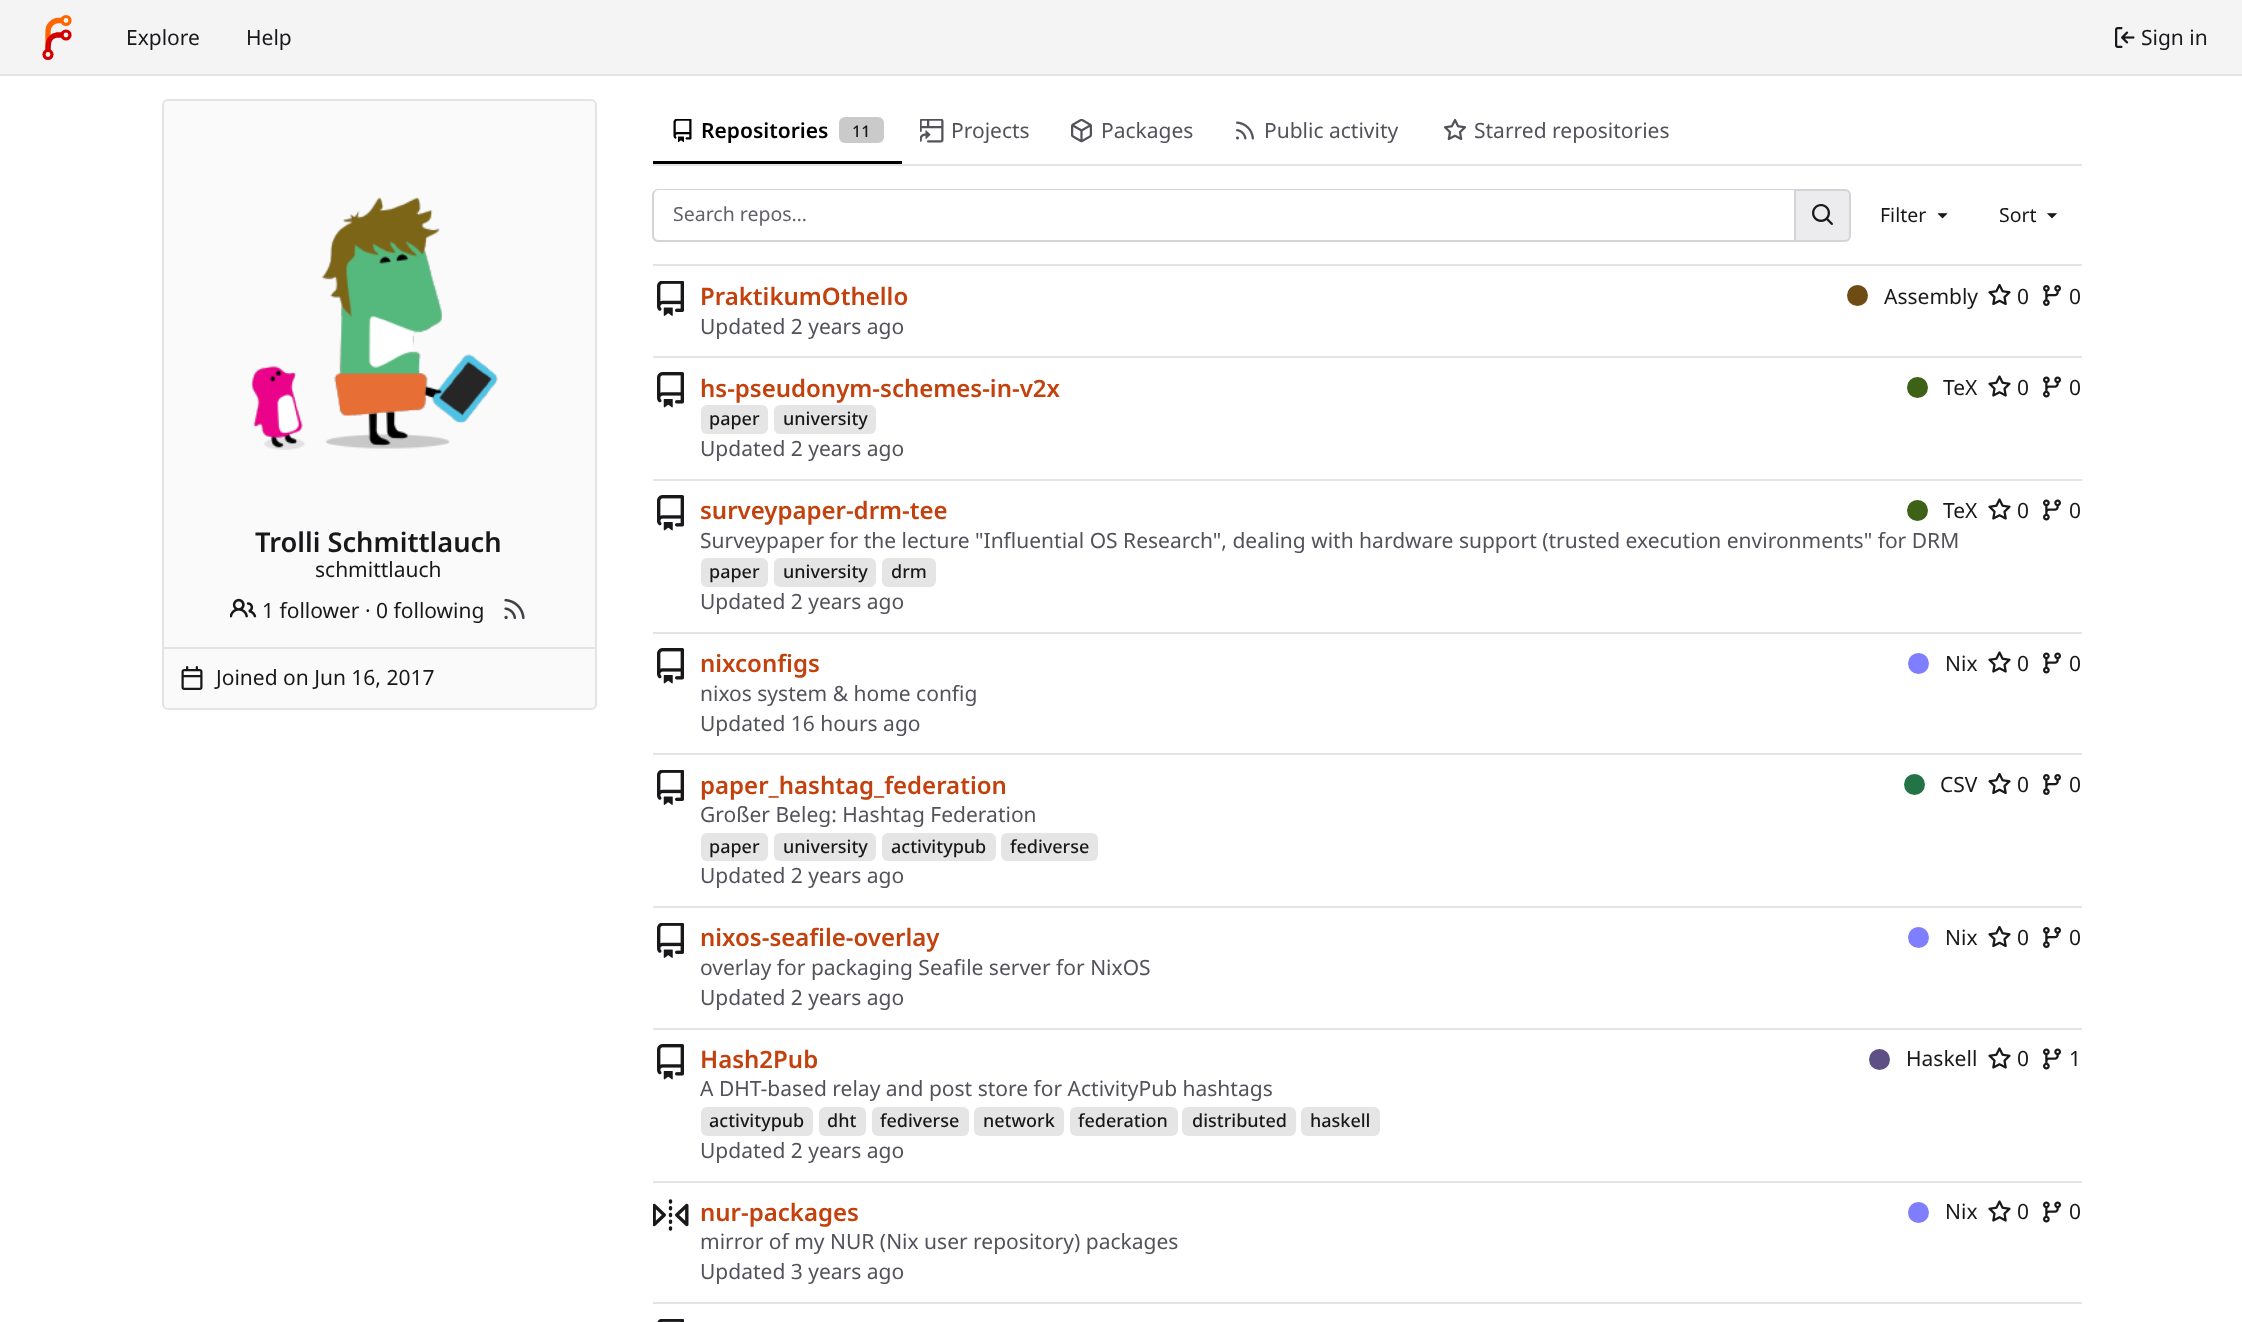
<!DOCTYPE html>
<meta charset="utf-8">
<style>body { margin: 0 } canvas { display: block }</style>
<canvas id="canvas" width="2242" height="1322"></canvas>
<img id="img1" src="images/1.png" hidden>
<img id="img2" src="images/2.png" hidden>
<img id="img3" src="images/3.png" hidden>
<img id="img4" src="images/4.png" hidden>
<img id="img5" src="images/5.png" hidden>
<img id="img6" src="images/6.png" hidden>
<img id="img7" src="images/7.png" hidden>
<img id="img8" src="images/8.png" hidden>
<img id="img9" src="images/9.png" hidden>
<img id="img10" src="images/10.png" hidden>
<img id="img11" src="images/11.png" hidden>
<img id="img12" src="images/12.png" hidden>
<img id="img13" src="images/13.png" hidden>
<img id="img14" src="images/14.png" hidden>
<img id="img15" src="images/15.png" hidden>
<img id="img16" src="images/16.png" hidden>
<img id="img17" src="images/17.png" hidden>
<img id="img18" src="images/18.png" hidden>
<img id="img19" src="images/19.png" hidden>
<img id="img20" src="images/20.png" hidden>
<img id="img21" src="images/21.png" hidden>
<script>
window.onload = function () {
    const canvas = document.getElementById('canvas');
    const context = canvas.getContext('2d');
    context.miterLimit = 4;
    context.fontKerning = 'normal';

    context.fillStyle = 'rgb(255, 255, 255)';
    context.fillRect(0, 0, 2242, 1322);
    context.fillStyle = 'rgb(244, 244, 245)';
    context.fillRect(0, 0, 2242, 74);
    context.fillStyle = 'rgb(228, 228, 231)';
    context.fillRect(0, 74, 2242, 2);
    context.beginPath();
    context.moveTo(48, 52);
    context.lineTo(48, 31);
    context.bezierCurveTo(48, 25.5, 53, 20.5, 58.5, 20.5);
    context.lineTo(63, 20.5);
    context.strokeStyle = 'rgb(255, 102, 0)';
    context.lineWidth = 5.3;
    context.stroke();
    context.beginPath();
    context.moveTo(48, 52);
    context.bezierCurveTo(48, 45, 47.5, 37, 56.5, 35);
    context.lineTo(63, 35);
    context.strokeStyle = 'rgb(212, 0, 0)';
    context.stroke();
    context.beginPath();
    context.arc(66, 20.5, 4, 0, 2 * Math.PI);
    context.strokeStyle = 'rgb(255, 102, 0)';
    context.lineWidth = 3.2;
    context.stroke();
    context.beginPath();
    context.arc(66, 35, 4, 0, 2 * Math.PI);
    context.strokeStyle = 'rgb(212, 0, 0)';
    context.stroke();
    context.beginPath();
    context.arc(48, 54.5, 4, 0, 2 * Math.PI);
    context.stroke();
    context.drawImage(document.getElementById('img1'), 2115, 27, 20, 21);
    context.fillStyle = 'rgb(250, 250, 250)';
    context.beginPath();
    context.roundRect(163, 100, 433, 609, 5);
    context.fill();
    context.strokeStyle = 'rgb(228, 228, 231)';
    context.lineWidth = 2;
    context.stroke();
    context.drawImage(document.getElementById('img2'), 251, 197, 247, 253);
    context.drawImage(document.getElementById('img3'), 230, 598, 27, 20);
    context.drawImage(document.getElementById('img4'), 504, 598, 21, 22);
    context.fillStyle = 'rgb(228, 228, 231)';
    context.fillRect(164, 647, 432, 2);
    context.drawImage(document.getElementById('img5'), 181, 666, 22, 24);
    context.fillRect(653, 164, 1429, 2);
    context.fillStyle = 'rgb(0, 0, 0)';
    context.fillRect(653, 161, 249, 3);
    context.drawImage(document.getElementById('img6'), 673, 119, 19, 24);
    context.fillStyle = 'rgb(202, 202, 202)';
    context.beginPath();
    context.roundRect(839, 117, 45, 26, 6);
    context.fill();
    context.drawImage(document.getElementById('img7'), 920, 119, 24, 24);
    context.drawImage(document.getElementById('img8'), 1071, 119, 21, 24);
    context.drawImage(document.getElementById('img9'), 1236, 121, 18, 19);
    context.drawImage(document.getElementById('img10'), 1443, 119, 24, 22);
    context.fillStyle = 'rgb(212, 212, 216)';
    context.beginPath();
    context.moveTo(658, 189);
    context.lineTo(1794, 189);
    context.lineTo(1794, 242);
    context.lineTo(658, 242);
    context.bezierCurveTo(655, 242, 652, 239, 652, 236);
    context.lineTo(652, 195);
    context.bezierCurveTo(652, 192, 655, 189, 658, 189);
    context.closePath();
    context.moveTo(658, 190);
    context.lineTo(1794, 190);
    context.lineTo(1794, 240);
    context.lineTo(658, 240);
    context.bezierCurveTo(656, 240, 654, 238, 654, 236);
    context.lineTo(654, 195);
    context.bezierCurveTo(654, 193, 656, 190, 658, 190);
    context.closePath();
    context.fill('evenodd');
    context.fillStyle = 'rgb(236, 236, 238)';
    context.beginPath();
    context.roundRect(1795, 190, 55, 51, [0, 5, 5, 0]);
    context.fill();
    context.strokeStyle = 'rgb(212, 212, 216)';
    context.stroke();
    context.drawImage(document.getElementById('img11'), 1812, 204, 21, 21);
    context.drawImage(document.getElementById('img12'), 1937, 213, 11, 6);
    context.drawImage(document.getElementById('img13'), 2047, 213, 10, 6);
    context.fillStyle = 'rgb(228, 228, 231)';
    context.fillRect(653, 264, 1429, 2);
    context.drawImage(document.getElementById('img14'), 657, 281, 27, 35);
    context.fillStyle = 'rgb(110, 76, 19)';
    context.beginPath();
    context.arc(1857.5, 295.5, 10.5, 0, 2 * Math.PI);
    context.fill();
    context.drawImage(document.getElementById('img15'), 1988, 284, 23, 22);
    context.drawImage(document.getElementById('img16'), 2043, 285, 18, 21);
    context.fillStyle = 'rgb(228, 228, 231)';
    context.fillRect(653, 356, 1429, 2);
    context.drawImage(document.getElementById('img17'), 657, 372, 27, 36);
    context.fillStyle = 'rgb(61, 97, 23)';
    context.beginPath();
    context.arc(1917.5, 387.5, 10.5, 0, 2 * Math.PI);
    context.fill();
    context.drawImage(document.getElementById('img18'), 1988, 375, 23, 22);
    context.drawImage(document.getElementById('img19'), 2043, 376, 18, 22);
    context.fillStyle = 'rgb(229, 229, 229)';
    context.beginPath();
    context.roundRect(701, 405, 67, 29, 6);
    context.fill();
    context.beginPath();
    context.roundRect(774, 405, 102, 29, 6);
    context.fill();
    context.fillStyle = 'rgb(228, 228, 231)';
    context.fillRect(653, 479, 1429, 2);
    context.drawImage(document.getElementById('img17'), 657, 495, 27, 36);
    context.fillStyle = 'rgb(61, 97, 23)';
    context.beginPath();
    context.arc(1917.5, 510.5, 10.5, 0, 2 * Math.PI);
    context.fill();
    context.drawImage(document.getElementById('img18'), 1988, 498, 23, 22);
    context.drawImage(document.getElementById('img19'), 2043, 499, 18, 22);
    context.fillStyle = 'rgb(229, 229, 229)';
    context.beginPath();
    context.roundRect(701, 558, 67, 29, 6);
    context.fill();
    context.beginPath();
    context.roundRect(774, 558, 102, 29, 6);
    context.fill();
    context.beginPath();
    context.roundRect(882, 558, 54, 29, 6);
    context.fill();
    context.fillStyle = 'rgb(228, 228, 231)';
    context.fillRect(653, 632, 1429, 2);
    context.drawImage(document.getElementById('img17'), 657, 648, 27, 36);
    context.fillStyle = 'rgb(126, 126, 255)';
    context.beginPath();
    context.arc(1918.5, 663.5, 10.5, 0, 2 * Math.PI);
    context.fill();
    context.drawImage(document.getElementById('img18'), 1988, 651, 23, 22);
    context.drawImage(document.getElementById('img19'), 2043, 652, 18, 22);
    context.fillStyle = 'rgb(228, 228, 231)';
    context.fillRect(653, 753, 1429, 2);
    context.drawImage(document.getElementById('img14'), 657, 770, 27, 35);
    context.fillStyle = 'rgb(35, 115, 70)';
    context.beginPath();
    context.arc(1914.5, 784.5, 10.5, 0, 2 * Math.PI);
    context.fill();
    context.drawImage(document.getElementById('img15'), 1988, 773, 23, 22);
    context.drawImage(document.getElementById('img16'), 2043, 774, 18, 21);
    context.fillStyle = 'rgb(229, 229, 229)';
    context.beginPath();
    context.roundRect(701, 833, 67, 28, 6);
    context.fill();
    context.beginPath();
    context.roundRect(774, 833, 102, 28, 6);
    context.fill();
    context.beginPath();
    context.roundRect(882, 833, 114, 28, 6);
    context.fill();
    context.beginPath();
    context.roundRect(1001, 833, 97, 28, 6);
    context.fill();
    context.fillStyle = 'rgb(228, 228, 231)';
    context.fillRect(653, 906, 1429, 2);
    context.drawImage(document.getElementById('img14'), 657, 923, 27, 35);
    context.fillStyle = 'rgb(126, 126, 255)';
    context.beginPath();
    context.arc(1918.5, 937.5, 10.5, 0, 2 * Math.PI);
    context.fill();
    context.drawImage(document.getElementById('img15'), 1988, 926, 23, 22);
    context.drawImage(document.getElementById('img16'), 2043, 927, 18, 21);
    context.fillStyle = 'rgb(228, 228, 231)';
    context.fillRect(653, 1028, 1429, 2);
    context.drawImage(document.getElementById('img17'), 657, 1044, 27, 36);
    context.fillStyle = 'rgb(94, 80, 134)';
    context.beginPath();
    context.arc(1879.5, 1059.5, 10.5, 0, 2 * Math.PI);
    context.fill();
    context.drawImage(document.getElementById('img18'), 1988, 1047, 23, 22);
    context.drawImage(document.getElementById('img19'), 2043, 1048, 18, 22);
    context.fillStyle = 'rgb(229, 229, 229)';
    context.beginPath();
    context.roundRect(701, 1107, 112, 29, 6);
    context.fill();
    context.beginPath();
    context.roundRect(819, 1107, 47, 29, 6);
    context.fill();
    context.beginPath();
    context.roundRect(872, 1107, 97, 29, 6);
    context.fill();
    context.beginPath();
    context.roundRect(974, 1107, 90, 29, 6);
    context.fill();
    context.beginPath();
    context.roundRect(1070, 1107, 108, 29, 6);
    context.fill();
    context.beginPath();
    context.roundRect(1182, 1107, 114, 29, 6);
    context.fill();
    context.beginPath();
    context.roundRect(1301, 1107, 79, 29, 6);
    context.fill();
    context.fillStyle = 'rgb(228, 228, 231)';
    context.fillRect(653, 1181, 1429, 2);
    context.drawImage(document.getElementById('img20'), 653, 1199, 36, 32);
    context.fillStyle = 'rgb(126, 126, 255)';
    context.beginPath();
    context.arc(1918.5, 1212.5, 10.5, 0, 2 * Math.PI);
    context.fill();
    context.drawImage(document.getElementById('img18'), 1988, 1200, 23, 22);
    context.drawImage(document.getElementById('img19'), 2043, 1201, 18, 22);
    context.fillStyle = 'rgb(228, 228, 231)';
    context.fillRect(653, 1302, 1429, 2);
    context.drawImage(document.getElementById('img21'), 657, 1319, 27, 3);
    context.font = '21px Noto Sans';
    context.fillStyle = 'rgb(24, 24, 27)';
    context.fillText('Explore', 126, 45);
    context.fillText('Help', 246, 45);
    context.fillText('Sign in', 2141, 45);
    context.font = '600 27.25px Noto Sans';
    context.fillText('Trolli Schmittlauch', 255, 552);
    context.font = '21px Noto Sans';
    context.fillText('schmittlauch', 315, 577);
    context.fillText('1 follower · 0 following', 262, 618);
    context.fillText('Joined on Jun 16, 2017', 216, 685);
    context.font = '600 21px Noto Sans';
    context.fillStyle = 'rgb(0, 0, 0)';
    context.fillText('Repositories', 701, 138);
    context.font = '500 16px Noto Sans';
    context.fillStyle = 'rgb(24, 24, 27)';
    context.fillText('11', 852, 137);
    context.font = '21px Noto Sans';
    context.fillStyle = 'rgb(82, 82, 91)';
    context.fillText('Projects', 951, 138);
    context.fillText('Packages', 1101, 138);
    context.fillText('Public activity', 1264, 138);
    context.fillText('Starred repositories', 1474, 138);
    context.font = '19.5px Noto Sans';
    context.fillStyle = 'rgb(97, 97, 106)';
    context.fillText('Search repos…', 673, 221);
    context.fillStyle = 'rgb(24, 24, 27)';
    context.fillText('Filter', 1880, 222);
    context.fillText('Sort', 1999, 222);
    context.font = '600 24px Noto Sans';
    context.fillStyle = 'rgb(194, 65, 12)';
    context.fillText('PraktikumOthello', 700, 305);
    context.font = '21px Noto Sans';
    context.fillStyle = 'rgb(24, 24, 27)';
    context.fillText('Assembly', 1884, 304);
    context.fillText('0', 2017, 304);
    context.fillText('0', 2069, 304);
    context.fillStyle = 'rgb(82, 82, 91)';
    context.fillText('Updated 2 years ago', 700, 334);
    context.font = '600 24px Noto Sans';
    context.fillStyle = 'rgb(194, 65, 12)';
    context.fillText('hs-pseudonym-schemes-in-v2x', 700, 397);
    context.font = '21px Noto Sans';
    context.fillStyle = 'rgb(24, 24, 27)';
    context.fillText('TeX', 1943, 395);
    context.fillText('0', 2017, 395);
    context.fillText('0', 2069, 395);
    context.font = '500 18px Noto Sans';
    context.fillText('paper', 709, 425);
    context.fillText('university', 783, 425);
    context.font = '21px Noto Sans';
    context.fillStyle = 'rgb(82, 82, 91)';
    context.fillText('Updated 2 years ago', 700, 456);
    context.font = '600 24px Noto Sans';
    context.fillStyle = 'rgb(194, 65, 12)';
    context.fillText('surveypaper-drm-tee', 700, 519);
    context.font = '21px Noto Sans';
    context.fillStyle = 'rgb(24, 24, 27)';
    context.fillText('TeX', 1943, 518);
    context.fillText('0', 2017, 518);
    context.fillText('0', 2069, 518);
    context.fillStyle = 'rgb(82, 82, 91)';
    context.fillText('Surveypaper for the lecture "Influential OS Research", dealing with hardware support (trusted execution environments" for DRM', 700, 548);
    context.font = '500 18px Noto Sans';
    context.fillStyle = 'rgb(24, 24, 27)';
    context.fillText('paper', 709, 578);
    context.fillText('university', 783, 578);
    context.fillText('drm', 891, 578);
    context.font = '21px Noto Sans';
    context.fillStyle = 'rgb(82, 82, 91)';
    context.fillText('Updated 2 years ago', 700, 609);
    context.font = '600 24px Noto Sans';
    context.fillStyle = 'rgb(194, 65, 12)';
    context.fillText('nixconfigs', 700, 672);
    context.font = '21px Noto Sans';
    context.fillStyle = 'rgb(24, 24, 27)';
    context.fillText('Nix', 1945, 671);
    context.fillText('0', 2017, 671);
    context.fillText('0', 2069, 671);
    context.fillStyle = 'rgb(82, 82, 91)';
    context.fillText('nixos system & home config', 700, 701);
    context.fillText('Updated 16 hours ago', 700, 731);
    context.font = '600 24px Noto Sans';
    context.fillStyle = 'rgb(194, 65, 12)';
    context.fillText('paper_hashtag_federation', 700, 794);
    context.font = '21px Noto Sans';
    context.fillStyle = 'rgb(24, 24, 27)';
    context.fillText('CSV', 1940, 792);
    context.fillText('0', 2017, 792);
    context.fillText('0', 2069, 792);
    context.fillStyle = 'rgb(82, 82, 91)';
    context.fillText('Großer Beleg: Hashtag Federation', 700, 822);
    context.font = '500 18px Noto Sans';
    context.fillStyle = 'rgb(24, 24, 27)';
    context.fillText('paper', 709, 853);
    context.fillText('university', 783, 853);
    context.fillText('activitypub', 891, 853);
    context.fillText('fediverse', 1010, 853);
    context.font = '21px Noto Sans';
    context.fillStyle = 'rgb(82, 82, 91)';
    context.fillText('Updated 2 years ago', 700, 883);
    context.font = '600 24px Noto Sans';
    context.fillStyle = 'rgb(194, 65, 12)';
    context.fillText('nixos-seafile-overlay', 700, 946);
    context.font = '21px Noto Sans';
    context.fillStyle = 'rgb(24, 24, 27)';
    context.fillText('Nix', 1945, 945);
    context.fillText('0', 2017, 945);
    context.fillText('0', 2069, 945);
    context.fillStyle = 'rgb(82, 82, 91)';
    context.fillText('overlay for packaging Seafile server for NixOS', 700, 975);
    context.fillText('Updated 2 years ago', 700, 1005);
    context.font = '600 24px Noto Sans';
    context.fillStyle = 'rgb(194, 65, 12)';
    context.fillText('Hash2Pub', 700, 1068);
    context.font = '21px Noto Sans';
    context.fillStyle = 'rgb(24, 24, 27)';
    context.fillText('Haskell', 1906, 1066);
    context.fillText('0', 2017, 1066);
    context.fillText('1', 2069, 1066);
    context.fillStyle = 'rgb(82, 82, 91)';
    context.fillText('A DHT-based relay and post store for ActivityPub hashtags', 700, 1096);
    context.font = '500 18px Noto Sans';
    context.fillStyle = 'rgb(24, 24, 27)';
    context.fillText('activitypub', 709, 1127);
    context.fillText('dht', 827, 1127);
    context.fillText('fediverse', 880, 1127);
    context.fillText('network', 983, 1127);
    context.fillText('federation', 1078, 1127);
    context.fillText('distributed', 1192, 1127);
    context.fillText('haskell', 1310, 1127);
    context.font = '21px Noto Sans';
    context.fillStyle = 'rgb(82, 82, 91)';
    context.fillText('Updated 2 years ago', 700, 1158);
    context.font = '600 24px Noto Sans';
    context.fillStyle = 'rgb(194, 65, 12)';
    context.fillText('nur-packages', 700, 1221);
    context.font = '21px Noto Sans';
    context.fillStyle = 'rgb(24, 24, 27)';
    context.fillText('Nix', 1945, 1219);
    context.fillText('0', 2017, 1219);
    context.fillText('0', 2069, 1219);
    context.fillStyle = 'rgb(82, 82, 91)';
    context.fillText('mirror of my NUR (Nix user repository) packages', 700, 1249);
    context.fillText('Updated 3 years ago', 700, 1279);
};
</script>
